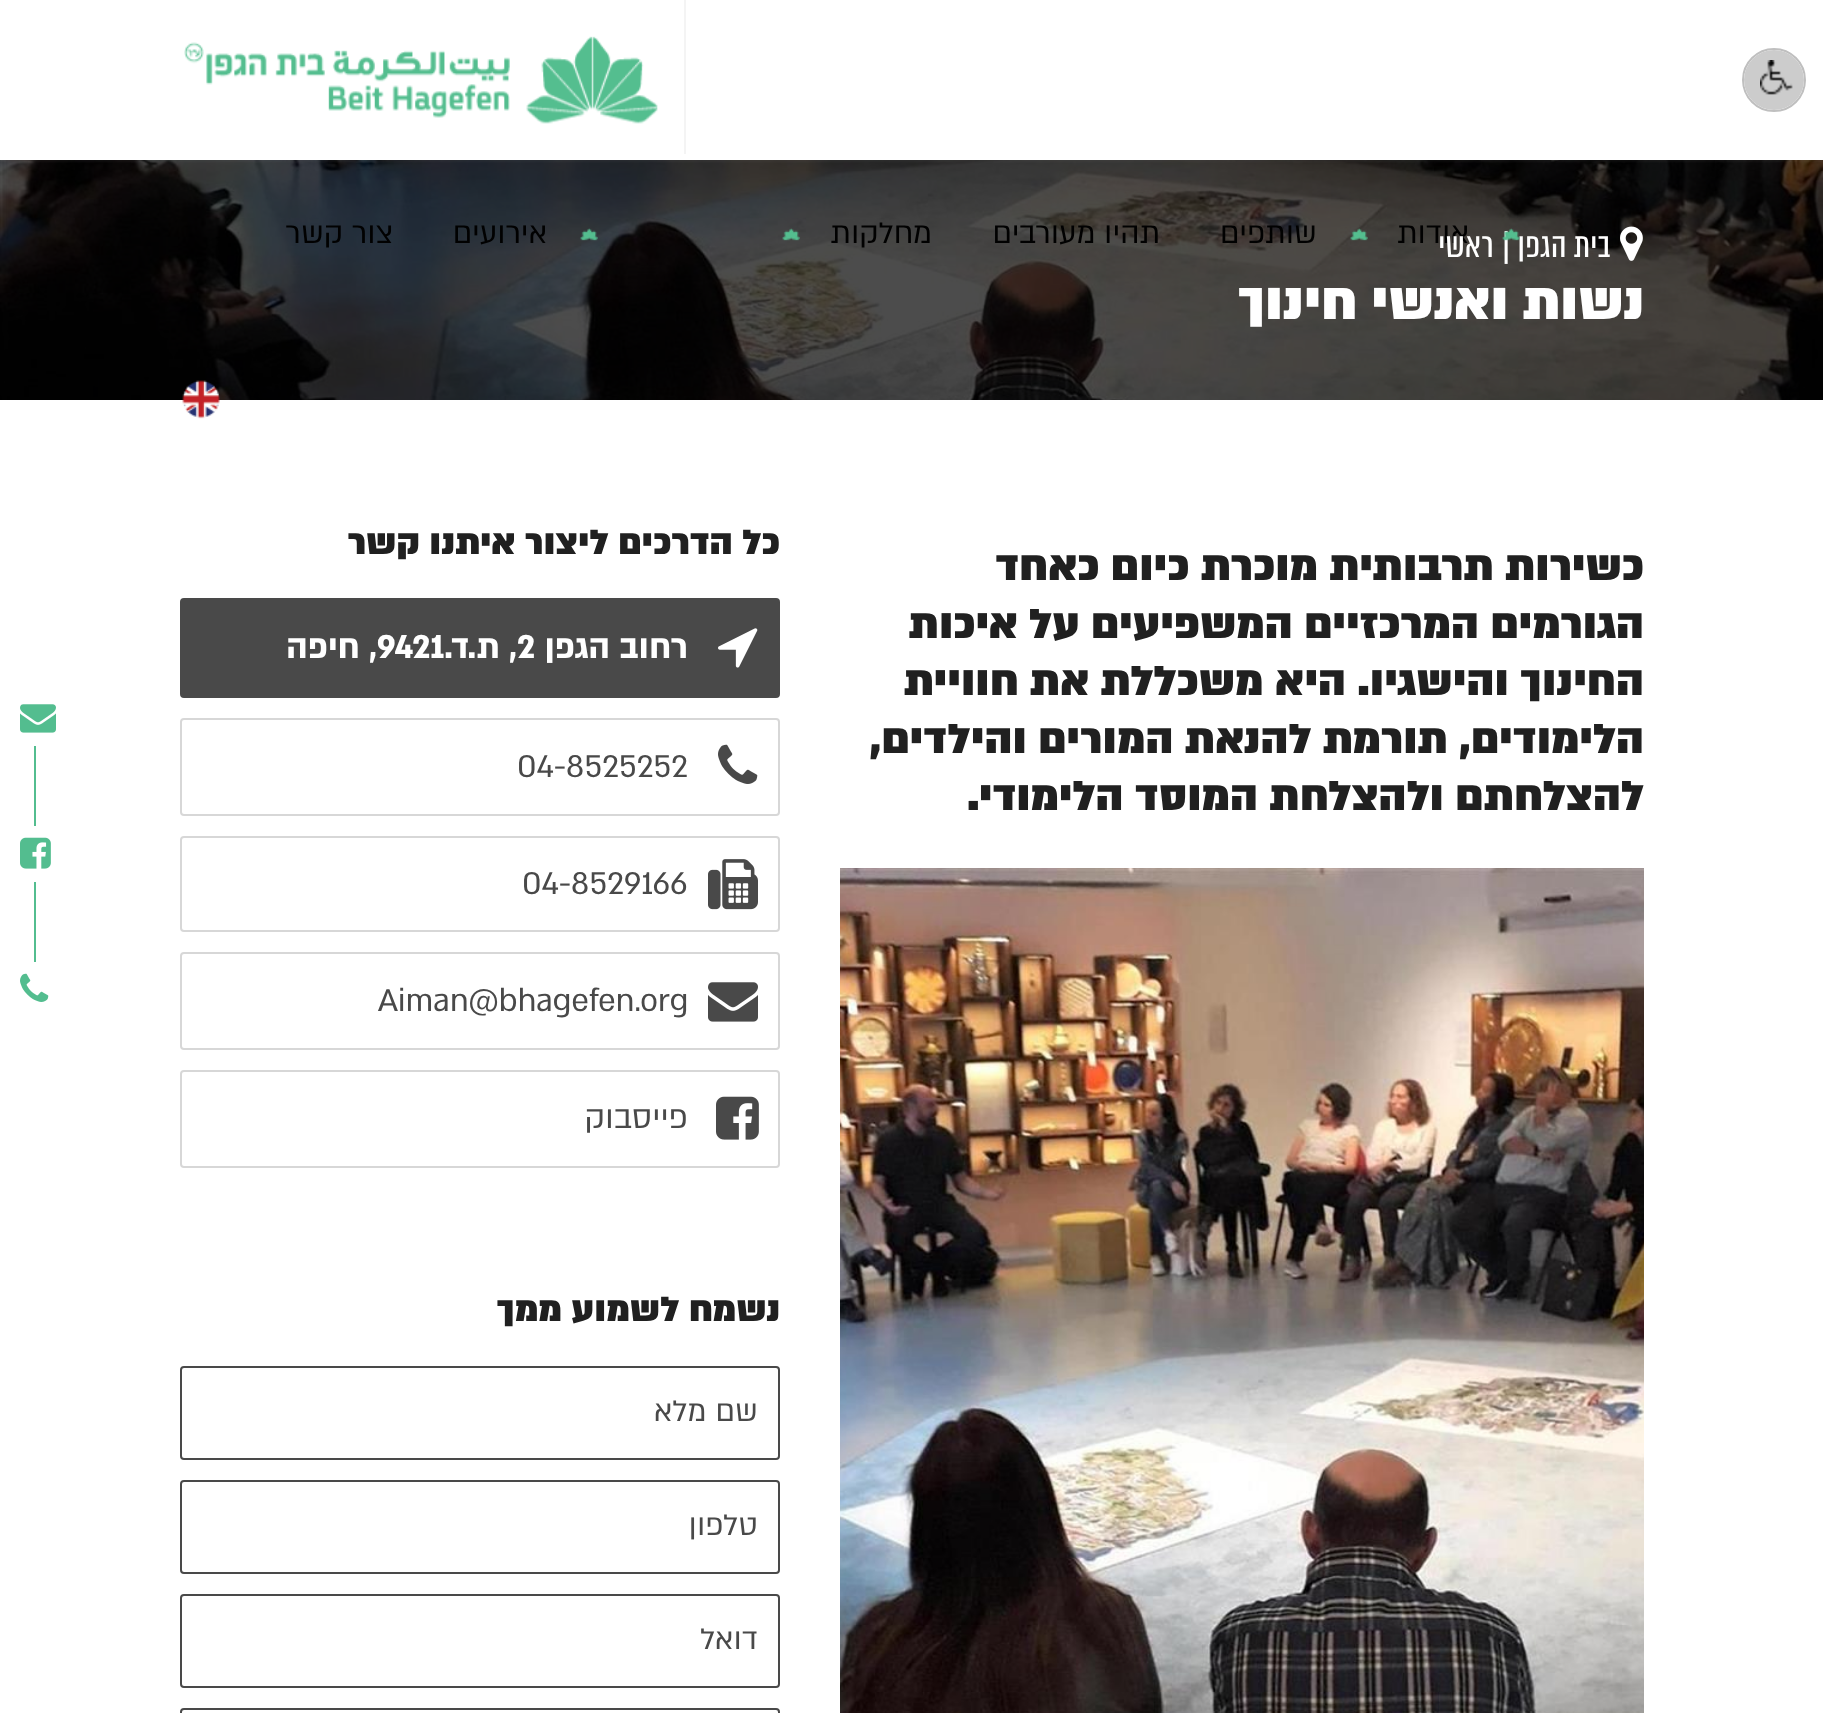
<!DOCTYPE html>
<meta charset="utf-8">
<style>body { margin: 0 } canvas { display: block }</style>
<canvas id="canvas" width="1823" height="1713"></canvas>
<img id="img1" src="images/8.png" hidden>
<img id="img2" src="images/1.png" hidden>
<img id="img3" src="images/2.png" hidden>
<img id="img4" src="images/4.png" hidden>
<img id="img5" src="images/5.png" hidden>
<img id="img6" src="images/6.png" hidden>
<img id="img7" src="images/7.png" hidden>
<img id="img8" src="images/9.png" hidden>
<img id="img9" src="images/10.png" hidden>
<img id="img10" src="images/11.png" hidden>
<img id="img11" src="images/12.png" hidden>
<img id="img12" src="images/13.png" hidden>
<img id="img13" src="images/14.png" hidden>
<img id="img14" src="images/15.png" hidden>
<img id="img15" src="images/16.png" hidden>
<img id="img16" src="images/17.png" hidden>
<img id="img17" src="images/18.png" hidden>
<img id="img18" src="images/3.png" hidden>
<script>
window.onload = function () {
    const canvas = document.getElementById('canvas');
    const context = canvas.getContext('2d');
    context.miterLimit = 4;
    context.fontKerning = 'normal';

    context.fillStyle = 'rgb(255, 255, 255)';
    context.fillRect(0, 0, 1823, 1713);
    context.drawImage(document.getElementById('img1'), 0, 160, 1823, 240);
    context.save();
    context.beginPath();
    context.rect(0, 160, 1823, 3);
    context.clip();
    context.fillStyle = 'rgba(121, 121, 121, 0.1)';
    context.filter = 'blur(1px)';
    context.beginPath();
    context.rect(0, 2, 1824, 160);
    context.fill();
    context.filter = 'none';
    context.restore();
    context.beginPath();
    context.arc(1774, 80, 31, 0, 2 * Math.PI);
    context.strokeStyle = 'rgb(191, 191, 191)';
    context.lineWidth = 2;
    context.stroke();
    context.fillStyle = 'rgb(204, 204, 204)';
    context.beginPath();
    context.arc(1774, 80, 30, 0, 2 * Math.PI);
    context.fill();
    context.drawImage(document.getElementById('img2'), 1760, 60, 33, 35);
    context.fillStyle = 'rgb(244, 244, 244)';
    context.fillRect(684, 0, 2, 154);
    context.drawImage(document.getElementById('img3'), 184, 36, 474, 88);
    context.drawImage(document.getElementById('img4'), 1350, 228, 18, 13);
    context.drawImage(document.getElementById('img5'), 782, 228, 18, 13);
    context.drawImage(document.getElementById('img6'), 580, 228, 18, 13);
    context.drawImage(document.getElementById('img7'), 182, 380, 38, 39);
    context.drawImage(document.getElementById('img8'), 1620, 226, 23, 35);
    context.drawImage(document.getElementById('img9'), 840, 868, 804, 845);
    context.fillStyle = 'rgb(73, 73, 73)';
    context.beginPath();
    context.roundRect(181, 599, 598, 98, 3);
    context.fill();
    context.strokeStyle = 'rgb(73, 73, 73)';
    context.stroke();
    context.drawImage(document.getElementById('img10'), 718, 628, 40, 40);
    context.beginPath();
    context.roundRect(181, 719, 598, 96, 3);
    context.strokeStyle = 'rgb(215, 215, 215)';
    context.stroke();
    context.drawImage(document.getElementById('img11'), 718, 744, 40, 40);
    context.beginPath();
    context.roundRect(181, 837, 598, 94, 3);
    context.stroke();
    context.drawImage(document.getElementById('img12'), 708, 859, 50, 51);
    context.beginPath();
    context.roundRect(181, 953, 598, 96, 3);
    context.stroke();
    context.drawImage(document.getElementById('img13'), 708, 982, 50, 40);
    context.beginPath();
    context.roundRect(181, 1071, 598, 96, 3);
    context.stroke();
    context.drawImage(document.getElementById('img14'), 716, 1096, 43, 44);
    context.beginPath();
    context.roundRect(181, 1367, 598, 92, 3);
    context.strokeStyle = 'rgb(73, 73, 73)';
    context.stroke();
    context.beginPath();
    context.roundRect(181, 1481, 598, 92, 3);
    context.stroke();
    context.beginPath();
    context.roundRect(181, 1595, 598, 92, 3);
    context.stroke();
    context.beginPath();
    context.roundRect(181, 1709, 598, 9, 3);
    context.stroke();
    context.drawImage(document.getElementById('img15'), 20, 704, 36, 29);
    context.fillStyle = 'rgb(83, 189, 143)';
    context.fillRect(34, 746, 2, 80);
    context.drawImage(document.getElementById('img16'), 20, 837, 31, 32);
    context.fillRect(34, 882, 2, 80);
    context.drawImage(document.getElementById('img17'), 20, 973, 29, 29);
    context.direction = 'rtl';
    context.font = '34px "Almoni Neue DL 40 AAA"';
    context.fillStyle = 'rgb(1, 1, 1)';
    context.fillText('אודות', 1469, 243);
    context.fillText('שותפים', 1317, 243);
    context.fillText('תהיו מעורבים', 1160, 243);
    context.fillText('מחלקות', 932, 243);
    context.fillText('אירועים', 547, 243);
    context.fillText('צור קשר', 393, 243);
    context.letterSpacing = '0.5px';
    context.font = '40px "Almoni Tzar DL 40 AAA"';
    context.fillStyle = 'rgb(255, 255, 255)';
    context.fillText('בית הגפן |', 1611, 257);
    context.drawImage(document.getElementById('img18'), 1502, 228, 18, 13);
    context.fillText('ראשי', 1494, 257);
    context.letterSpacing = '0px';
    context.font = '900 60px "Almoni Neue DL 40 AAA"';
    context.fillText('נשות ואנשי חינוך', 1644, 319);
    context.font = '900 48px "Almoni Neue DL 40 AAA"';
    context.fillStyle = 'rgb(32, 32, 32)';
    context.fillText('כשירות תרבותית מוכרת כיום כאחד', 1644, 580);
    context.fillText('הגורמים המרכזיים המשפיעים על איכות', 1644, 638);
    context.fillText('החינוך והישגיו. היא משכללת את חוויית', 1644, 695);
    context.fillText('הלימודים, תורמת להנאת המורים והילדים,', 1644, 753);
    context.fillText('להצלחתם ולהצלחת המוסד הלימודי.', 1644, 810);
    context.font = '900 40px "Almoni Neue DL 40 AAA"';
    context.fillText('כל הדרכים ליצור איתנו קשר', 780, 554);
    context.font = 'bold 38px "Almoni Neue DL 40 AAA"';
    context.fillStyle = 'rgb(255, 255, 255)';
    context.fillText('רחוב הגפן', 688, 658);
    context.direction = 'ltr';
    context.fillText('2', 517, 658);
    context.direction = 'rtl';
    context.fillText(', ת.ד.', 517, 658);
    context.direction = 'ltr';
    context.fillText('9421', 377, 658);
    context.direction = 'rtl';
    context.fillText(', חיפה', 377, 658);
    context.direction = 'ltr';
    context.font = '36px "Almoni Neue DL 40 AAA"';
    context.fillStyle = 'rgb(73, 73, 73)';
    context.fillText('04-8525252', 517, 777);
    context.fillText('04-8529166', 522, 894);
    context.fillText('Aiman@bhagefen.org', 378, 1011);
    context.direction = 'rtl';
    context.fillText('פייסבוק', 688, 1128);
    context.font = '900 40px "Almoni Neue DL 40 AAA"';
    context.fillStyle = 'rgb(32, 32, 32)';
    context.fillText('נשמח לשמוע ממך', 780, 1321);
    context.font = '34px "Almoni Neue DL 40 AAA"';
    context.fillStyle = 'rgb(73, 73, 73)';
    context.fillText('שם מלא', 758, 1421);
    context.fillText('טלפון', 758, 1535);
    context.fillText('דואל', 758, 1649);
};
</script>
